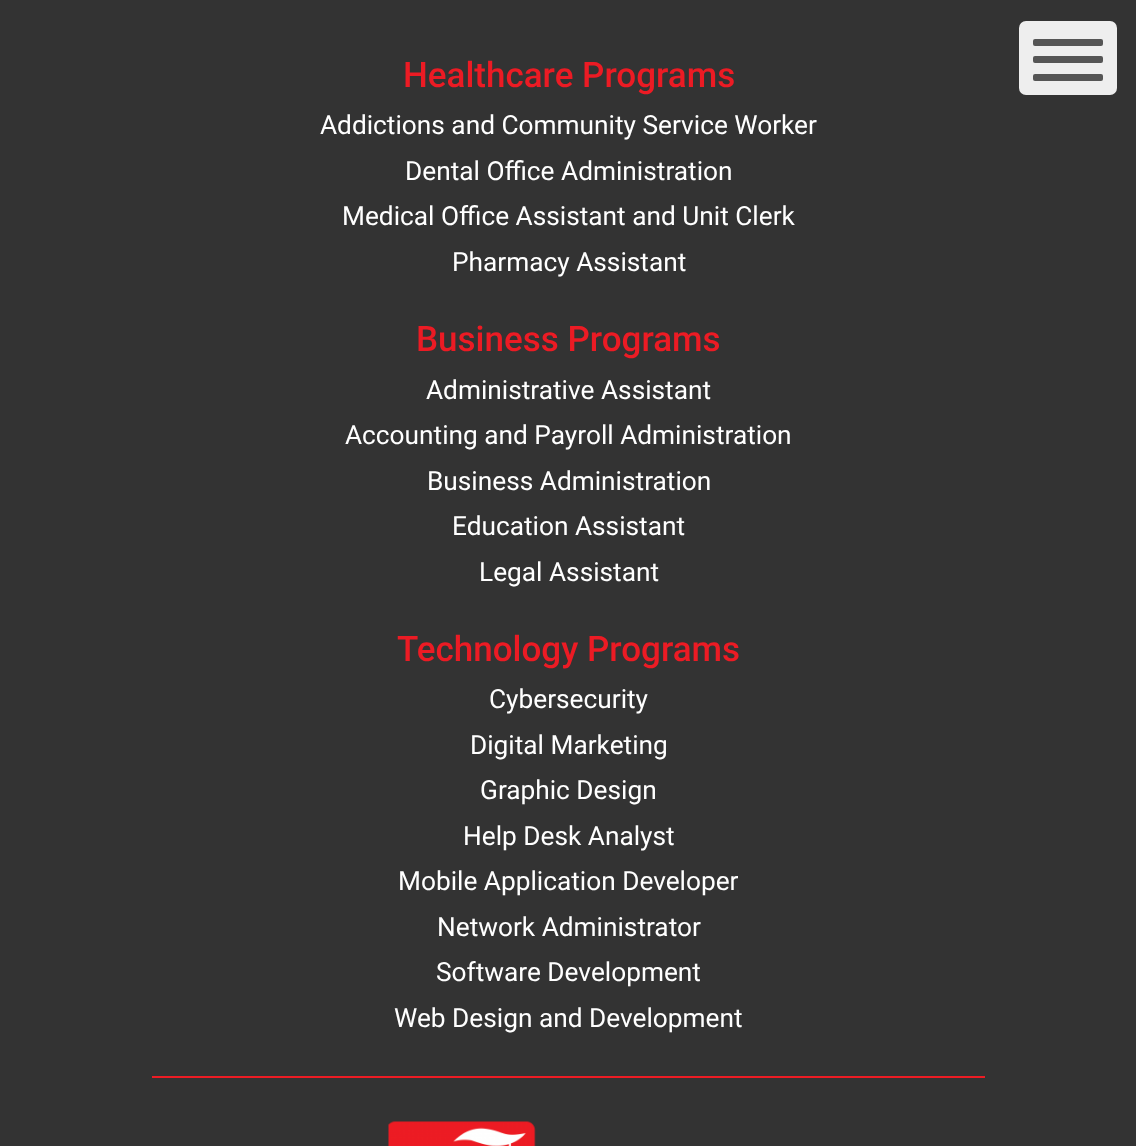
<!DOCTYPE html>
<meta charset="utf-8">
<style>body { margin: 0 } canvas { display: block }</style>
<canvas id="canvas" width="1136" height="1146"></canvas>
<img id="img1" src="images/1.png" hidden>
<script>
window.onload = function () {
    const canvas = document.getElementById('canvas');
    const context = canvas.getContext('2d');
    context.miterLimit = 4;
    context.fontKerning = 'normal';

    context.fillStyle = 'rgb(51, 51, 51)';
    context.fillRect(0, 0, 1136, 1146);
    context.fillStyle = 'rgb(237, 28, 36)';
    context.fillRect(152, 1076, 833, 2);
    context.drawImage(document.getElementById('img1'), 388, 1121, 148, 25);
    context.fillStyle = 'rgb(238, 238, 238)';
    context.beginPath();
    context.roundRect(1019, 21, 98, 74, 7);
    context.fill();
    context.fillStyle = 'rgb(85, 85, 85)';
    context.beginPath();
    context.roundRect(1033, 39, 70, 7, 2);
    context.fill();
    context.beginPath();
    context.roundRect(1033, 56, 70, 7, 2);
    context.fill();
    context.beginPath();
    context.roundRect(1033, 74, 70, 7, 2);
    context.fill();
    context.font = '500 35px Roboto';
    context.fillStyle = 'rgb(236, 27, 36)';
    context.fillText('Healthcare Programs', 403, 87);
    context.font = '26.25px Roboto';
    context.fillStyle = 'rgb(255, 255, 255)';
    context.fillText('Addictions and Community Service Worker', 320, 134);
    context.fillText('Dental Office Administration', 405, 180);
    context.fillText('Medical Office Assistant and Unit Clerk', 342, 225);
    context.fillText('Pharmacy Assistant', 452, 271);
    context.font = '500 35px Roboto';
    context.fillStyle = 'rgb(236, 27, 36)';
    context.fillText('Business Programs', 416, 351);
    context.font = '26.25px Roboto';
    context.fillStyle = 'rgb(255, 255, 255)';
    context.fillText('Administrative Assistant', 426, 399);
    context.fillText('Accounting and Payroll Administration', 345, 444);
    context.fillText('Business Administration', 427, 490);
    context.fillText('Education Assistant', 452, 535);
    context.fillText('Legal Assistant', 479, 581);
    context.font = '500 35px Roboto';
    context.fillStyle = 'rgb(236, 27, 36)';
    context.fillText('Technology Programs', 397, 661);
    context.font = '26.25px Roboto';
    context.fillStyle = 'rgb(255, 255, 255)';
    context.fillText('Cybersecurity', 489, 708);
    context.fillText('Digital Marketing', 470, 754);
    context.fillText('Graphic Design', 480, 799);
    context.fillText('Help Desk Analyst', 463, 845);
    context.fillText('Mobile Application Developer', 398, 890);
    context.fillText('Network Administrator', 437, 936);
    context.fillText('Software Development', 436, 981);
    context.fillText('Web Design and Development', 394, 1027);
};
</script>
